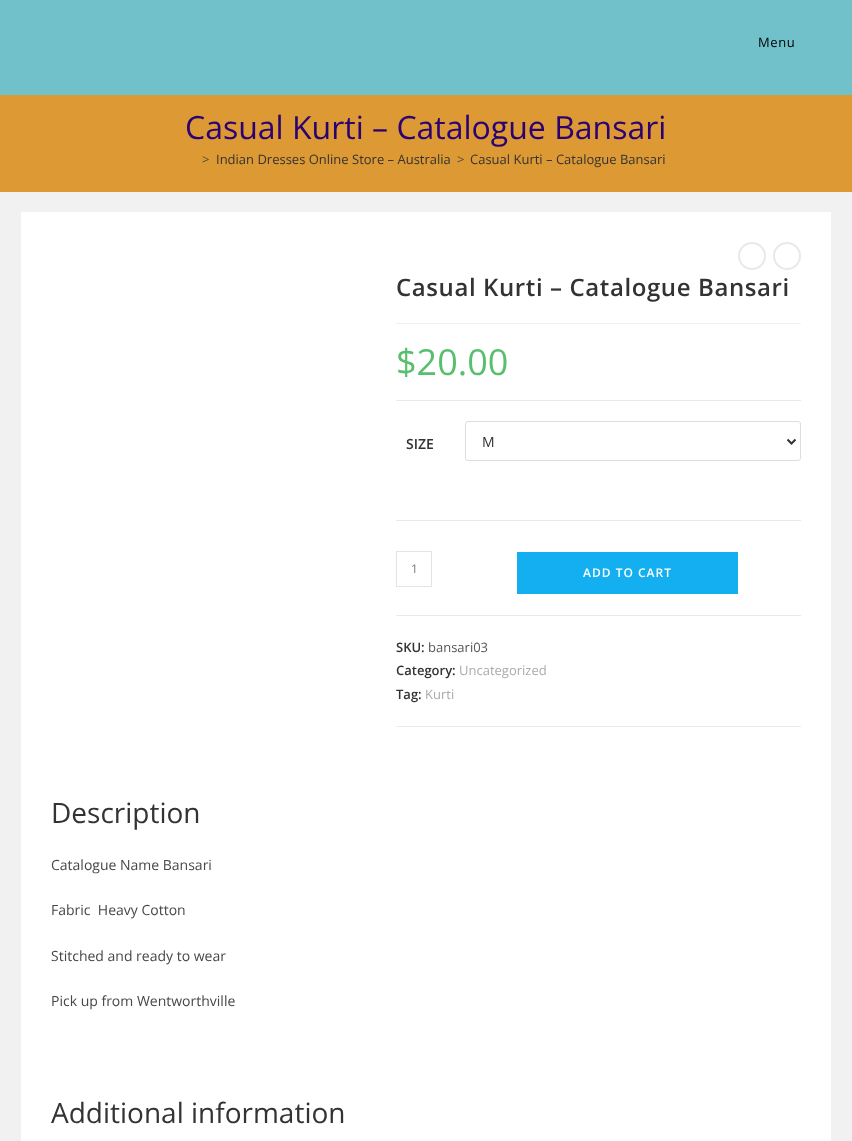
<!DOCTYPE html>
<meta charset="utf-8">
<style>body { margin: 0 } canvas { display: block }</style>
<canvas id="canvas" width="852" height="1141"></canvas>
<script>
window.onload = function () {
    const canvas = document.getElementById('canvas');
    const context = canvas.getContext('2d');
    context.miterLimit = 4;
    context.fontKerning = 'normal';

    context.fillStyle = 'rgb(241, 241, 241)';
    context.fillRect(0, 0, 852, 1141);
    context.fillStyle = 'rgb(113, 193, 202)';
    context.fillRect(0, 0, 852, 95);
    context.fillStyle = 'rgb(221, 153, 51)';
    context.fillRect(0, 95, 852, 97);
    context.fillStyle = 'rgb(255, 255, 255)';
    context.fillRect(21, 212, 810, 929);
    context.beginPath();
    context.arc(752, 256, 13, 0, 2 * Math.PI);
    context.strokeStyle = 'rgb(233, 233, 233)';
    context.lineWidth = 2;
    context.stroke();
    context.beginPath();
    context.arc(787, 256, 13, 0, 2 * Math.PI);
    context.stroke();
    context.fillStyle = 'rgb(241, 241, 241)';
    context.fillRect(396, 323, 405, 1);
    context.fillStyle = 'rgb(234, 234, 234)';
    context.fillRect(396, 400, 405, 1);
    context.fillRect(396, 615, 405, 1);
    context.fillStyle = 'rgb(233, 233, 233)';
    context.fillRect(396, 520, 405, 1);
    context.beginPath();
    context.roundRect(465.5, 421.5, 335, 39, 2.5);
    context.strokeStyle = 'rgb(221, 221, 221)';
    context.lineWidth = 1;
    context.stroke();
    context.beginPath();
    context.moveTo(787.5, 439.5);
    context.lineTo(791.5, 443.5);
    context.lineTo(795.5, 439.5);
    context.strokeStyle = 'rgb(51, 51, 51)';
    context.lineWidth = 2;
    context.stroke();
    context.strokeStyle = 'rgb(228, 228, 228)';
    context.lineWidth = 1;
    context.strokeRect(396.5, 551.5, 35, 35);
    context.fillStyle = 'rgb(19, 175, 240)';
    context.fillRect(517, 552, 221, 42);
    context.fillStyle = 'rgb(234, 234, 234)';
    context.fillRect(396, 726, 405, 1);
    context.letterSpacing = '0.6px';
    context.font = '13px Open Sans';
    context.fillStyle = 'rgb(0, 0, 0)';
    context.fillText('Menu', 758, 47);
    context.letterSpacing = '0px';
    context.font = '32px Open Sans';
    context.fillStyle = 'rgb(43, 0, 114)';
    context.fillText('Casual Kurti – Catalogue Bansari', 185, 139);
    context.font = '13px Open Sans';
    context.fillStyle = 'rgb(71, 71, 71)';
    context.fillText('>', 202, 164);
    context.fillStyle = 'rgb(51, 51, 51)';
    context.fillText('Indian Dresses Online Store – Australia', 216, 164);
    context.fillStyle = 'rgb(71, 71, 71)';
    context.fillText('>', 457, 164);
    context.fillStyle = 'rgb(51, 51, 51)';
    context.fillText('Casual Kurti – Catalogue Bansari', 470, 164);
    context.letterSpacing = '0.6px';
    context.font = '600 24px Open Sans';
    context.fillText('Casual Kurti – Catalogue Bansari', 396, 296);
    context.letterSpacing = '0px';
    context.font = '36px Open Sans';
    context.fillStyle = 'rgb(87, 191, 109)';
    context.fillText('$20.00', 396, 375);
    context.font = '600 14px Open Sans';
    context.fillStyle = 'rgb(51, 51, 51)';
    context.fillText('SIZE', 406, 449);
    context.font = '14px Open Sans';
    context.fillText('M', 482, 447);
    context.font = '12px Open Sans';
    context.fillStyle = 'rgb(119, 119, 119)';
    context.fillText('1', 411, 573);
    context.letterSpacing = '1px';
    context.font = '600 12px Open Sans';
    context.fillStyle = 'rgb(255, 255, 255)';
    context.fillText('ADD TO CART', 583, 577);
    context.letterSpacing = '0px';
    context.font = '600 13px Open Sans';
    context.fillStyle = 'rgb(51, 51, 51)';
    context.fillText('SKU:', 396, 652);
    context.font = '13px Open Sans';
    context.fillStyle = 'rgb(85, 85, 85)';
    context.fillText('bansari03', 428, 652);
    context.font = '600 13px Open Sans';
    context.fillStyle = 'rgb(51, 51, 51)';
    context.fillText('Category:', 396, 675);
    context.font = '13px Open Sans';
    context.fillStyle = 'rgb(171, 171, 171)';
    context.fillText('Uncategorized', 459, 675);
    context.font = '600 13px Open Sans';
    context.fillStyle = 'rgb(51, 51, 51)';
    context.fillText('Tag:', 396, 699);
    context.font = '13px Open Sans';
    context.fillStyle = 'rgb(171, 171, 171)';
    context.fillText('Kurti', 425, 699);
    context.font = '28px Open Sans';
    context.fillStyle = 'rgb(51, 51, 51)';
    context.fillText('Description', 51, 823);
    context.font = '14px Open Sans';
    context.fillStyle = 'rgb(71, 71, 71)';
    context.fillText('Catalogue Name Bansari', 51, 870);
    context.fillText('Fabric  Heavy Cotton', 51, 915);
    context.fillText('Stitched and ready to wear', 51, 961);
    context.fillText('Pick up from Wentworthville', 51, 1006);
    context.font = '28px Open Sans';
    context.fillStyle = 'rgb(51, 51, 51)';
    context.fillText('Additional information', 51, 1123);
};
</script>
